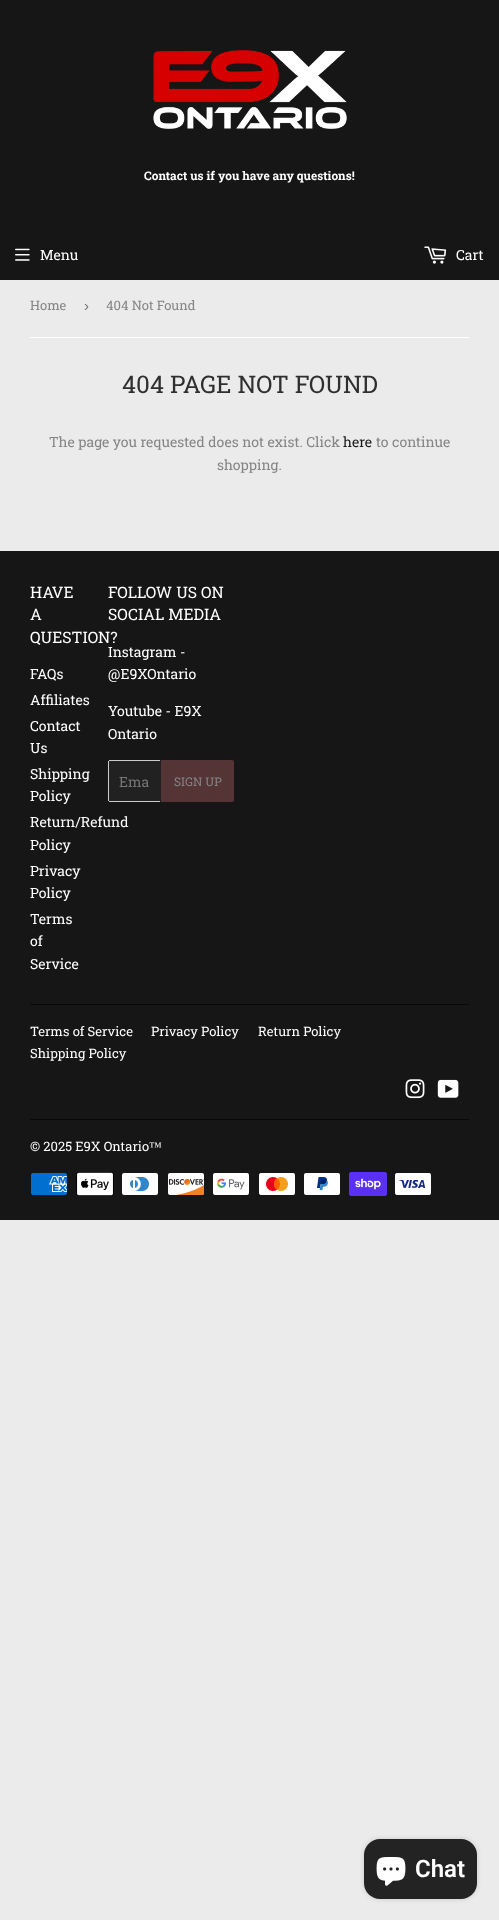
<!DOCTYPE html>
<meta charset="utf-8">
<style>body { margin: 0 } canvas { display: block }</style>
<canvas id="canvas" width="499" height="1920"></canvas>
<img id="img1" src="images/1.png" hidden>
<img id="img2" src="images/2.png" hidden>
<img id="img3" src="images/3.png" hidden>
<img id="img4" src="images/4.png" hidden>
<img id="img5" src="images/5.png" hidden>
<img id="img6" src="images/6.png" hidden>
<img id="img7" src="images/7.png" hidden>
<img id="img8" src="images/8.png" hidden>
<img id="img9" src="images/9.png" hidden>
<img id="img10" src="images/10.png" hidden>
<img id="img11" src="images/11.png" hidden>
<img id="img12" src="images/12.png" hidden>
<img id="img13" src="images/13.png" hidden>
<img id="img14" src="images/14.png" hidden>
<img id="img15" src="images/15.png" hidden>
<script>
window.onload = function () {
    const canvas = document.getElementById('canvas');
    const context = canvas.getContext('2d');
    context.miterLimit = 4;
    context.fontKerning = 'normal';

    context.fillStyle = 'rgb(235, 235, 235)';
    context.fillRect(0, 0, 499, 1920);
    context.fillStyle = 'rgb(22, 22, 22)';
    context.fillRect(0, 0, 499, 280);
    context.drawImage(document.getElementById('img1'), 153, 50, 194, 79);
    context.drawImage(document.getElementById('img2'), 15, 248, 15, 13);
    context.drawImage(document.getElementById('img3'), 424, 246, 23, 18);
    context.fillStyle = 'rgb(255, 255, 255)';
    context.fillRect(30, 337, 439, 1);
    context.fillStyle = 'rgb(22, 22, 22)';
    context.fillRect(0, 551, 499, 669);
    context.fillStyle = 'rgb(33, 33, 33)';
    context.beginPath();
    context.roundRect(108, 760, 53, 42, 2);
    context.fill();
    context.fillStyle = 'rgb(204, 204, 204)';
    context.fillRect(109, 760, 51, 1);
    context.fillRect(109, 801, 51, 1);
    context.fillRect(108, 761, 1, 40);
    context.fillStyle = 'rgb(84, 52, 52)';
    context.beginPath();
    context.roundRect(161, 760, 73, 42, [0, 2, 2, 0]);
    context.fill();
    context.fillStyle = 'rgb(9, 9, 9)';
    context.fillRect(30, 1004, 439, 1);
    context.drawImage(document.getElementById('img4'), 405, 1079, 20, 20);
    context.drawImage(document.getElementById('img5'), 437, 1079, 22, 19);
    context.fillRect(30, 1119, 439, 1);
    context.drawImage(document.getElementById('img6'), 31, 1173, 36, 22);
    context.drawImage(document.getElementById('img7'), 76, 1172, 38, 24);
    context.drawImage(document.getElementById('img8'), 122, 1173, 36, 22);
    context.drawImage(document.getElementById('img9'), 168, 1173, 36, 22);
    context.drawImage(document.getElementById('img10'), 213, 1173, 36, 22);
    context.drawImage(document.getElementById('img11'), 259, 1173, 36, 22);
    context.drawImage(document.getElementById('img12'), 304, 1173, 36, 22);
    context.drawImage(document.getElementById('img13'), 349, 1172, 38, 24);
    context.drawImage(document.getElementById('img14'), 395, 1173, 36, 22);
    context.fillStyle = 'rgba(0, 0, 0, 0.15)';
    context.filter = 'blur(2.5px)';
    context.beginPath();
    context.roundRect(364, 1839, 113, 60, 16);
    context.fill();
    context.filter = 'none';
    context.fillStyle = 'rgb(35, 35, 35)';
    context.beginPath();
    context.roundRect(364, 1839, 113, 60, 16);
    context.fill();
    context.drawImage(document.getElementById('img15'), 376, 1857, 30, 29);
    context.font = 'bold 11.9px Roboto Slab';
    context.fillStyle = 'rgb(255, 255, 255)';
    context.fillText('Contact us if you have any questions!', 144, 180);
    context.font = '14px Roboto Slab';
    context.fillText('Menu', 40, 260);
    context.fillText('Cart', 456, 260);
    context.font = '13px Roboto Slab';
    context.fillStyle = 'rgb(133, 133, 133)';
    context.fillText('Home', 30, 310);
    context.font = '15px Liberation Sans';
    context.fillStyle = 'rgb(118, 118, 118)';
    context.fillText('›', 84, 311);
    context.font = '13px Roboto Slab';
    context.fillStyle = 'rgb(133, 133, 133)';
    context.fillText('404 Not Found', 106, 310);
    context.font = '24.25px Roboto Slab';
    context.fillStyle = 'rgb(47, 47, 47)';
    context.fillText('404 PAGE NOT FOUND', 122, 393);
    context.font = '14px Roboto Slab';
    context.fillStyle = 'rgb(133, 133, 133)';
    context.fillText('The page you requested does not exist. Click', 49, 447);
    context.fillStyle = 'rgb(22, 22, 22)';
    context.fillText('here', 343, 447);
    context.fillStyle = 'rgb(133, 133, 133)';
    context.fillText('to continue', 376, 447);
    context.fillText('shopping.', 217, 470);
    context.font = '15.75px Roboto Slab';
    context.fillStyle = 'rgb(255, 255, 255)';
    context.fillText('HAVE', 30, 598);
    context.fillText('A', 30, 620);
    context.fillText('QUESTION?', 30, 643);
    context.font = '14px Roboto Slab';
    context.fillText('FAQs', 30, 679);
    context.fillText('Affiliates', 30, 705);
    context.fillText('Contact', 30, 731);
    context.fillText('Us', 30, 753);
    context.fillText('Shipping', 30, 779);
    context.fillText('Policy', 30, 801);
    context.fillText('Return/Refund', 30, 827);
    context.fillText('Policy', 30, 850);
    context.fillText('Privacy', 30, 876);
    context.fillText('Policy', 30, 898);
    context.fillText('Terms', 30, 924);
    context.fillText('of', 30, 946);
    context.fillText('Service', 30, 969);
    context.font = '15.75px Roboto Slab';
    context.fillText('FOLLOW US ON', 108, 598);
    context.fillText('SOCIAL MEDIA', 108, 620);
    context.font = '14px Roboto Slab';
    context.fillText('Instagram -', 108, 657);
    context.fillText('@E9XOntario', 108, 679);
    context.fillText('Youtube - E9X', 108, 716);
    context.fillText('Ontario', 108, 739);
    context.fillStyle = 'rgb(118, 118, 118)';
    context.fillText('Ema', 119, 787);
    context.font = '12px Roboto Slab';
    context.fillStyle = 'rgb(133, 133, 133)';
    context.fillText('SIGN UP', 174, 786);
    context.font = '13px Roboto Slab';
    context.fillStyle = 'rgb(255, 255, 255)';
    context.fillText('Terms of Service', 30, 1036);
    context.fillText('Privacy Policy', 151, 1036);
    context.fillText('Return Policy', 258, 1036);
    context.fillText('Shipping Policy', 30, 1058);
    context.fillText('© 2025 E9X Ontario', 30, 1151);
    context.font = '13px Liberation Serif';
    context.fillText('™', 149, 1151);
    context.font = '600 24px Roboto';
    context.fillText('Chat', 415, 1877);
};
</script>
